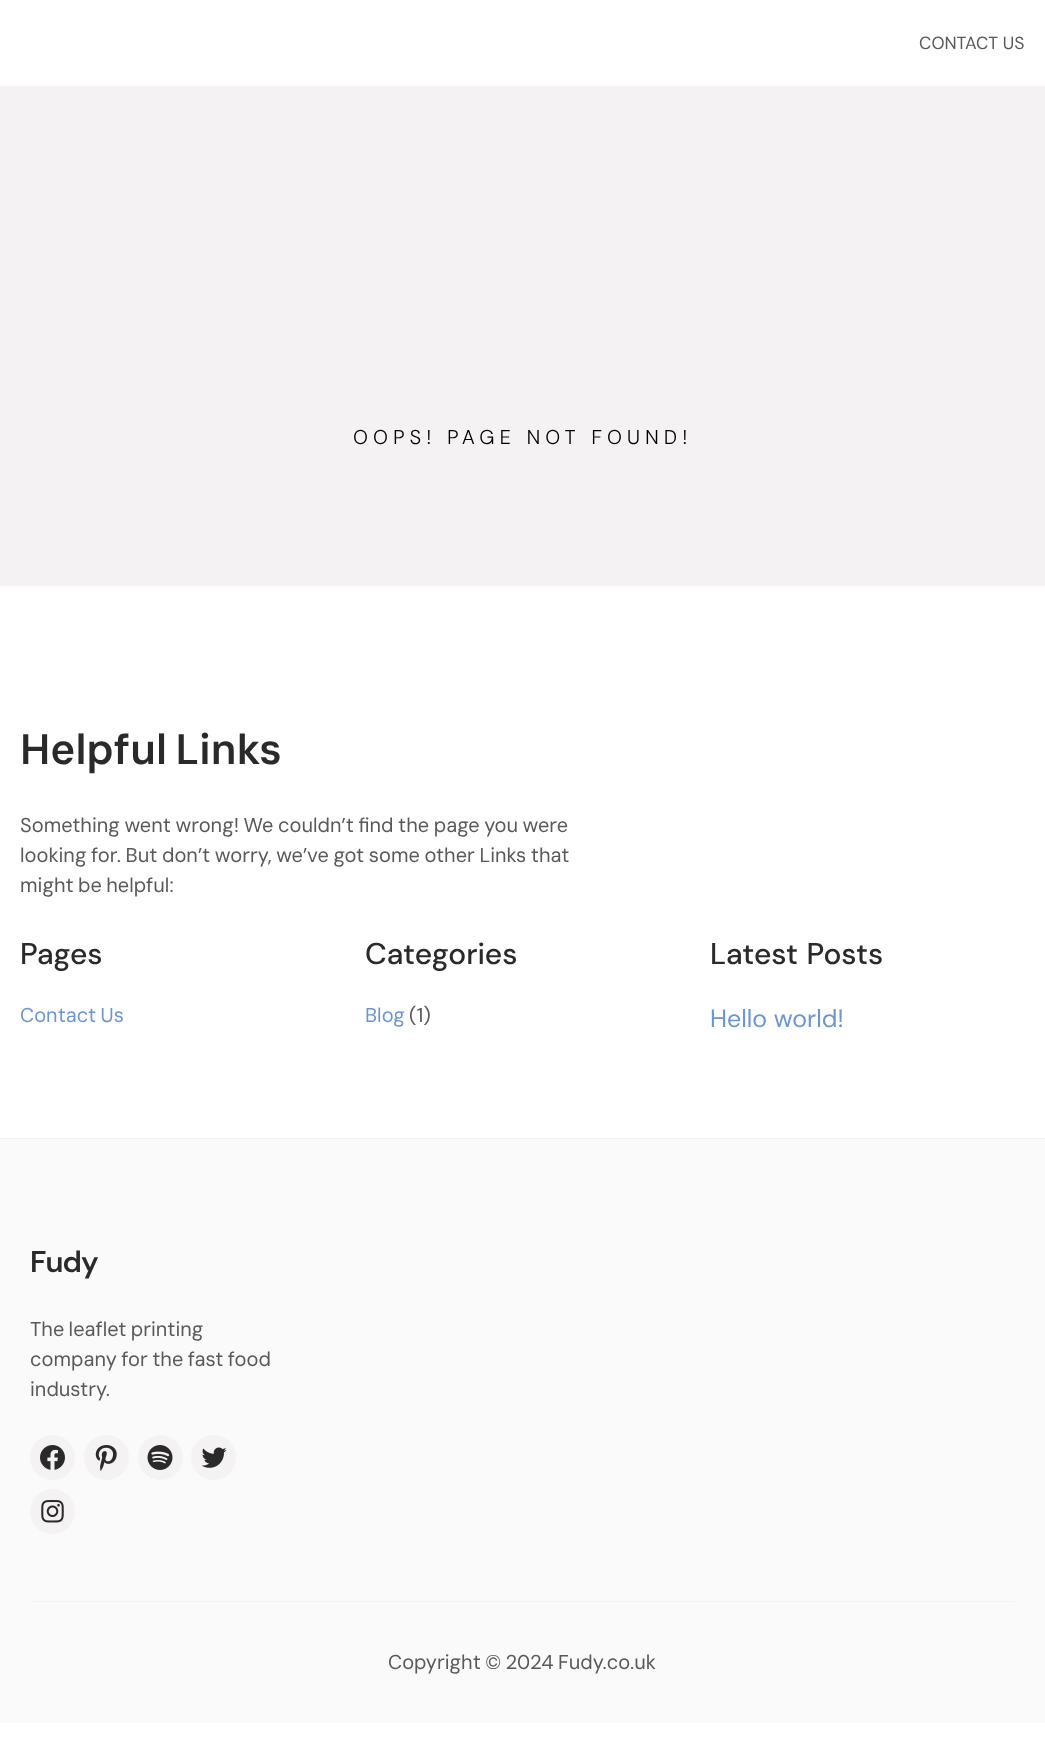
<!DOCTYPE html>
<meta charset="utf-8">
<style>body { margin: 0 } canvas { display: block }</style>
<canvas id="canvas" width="1045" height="1739"></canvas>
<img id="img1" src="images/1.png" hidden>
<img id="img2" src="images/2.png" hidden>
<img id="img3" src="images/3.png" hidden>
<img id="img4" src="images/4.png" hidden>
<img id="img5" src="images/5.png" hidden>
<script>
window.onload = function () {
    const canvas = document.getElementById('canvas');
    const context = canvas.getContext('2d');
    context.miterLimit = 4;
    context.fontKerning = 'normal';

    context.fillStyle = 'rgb(255, 255, 255)';
    context.fillRect(0, 0, 1045, 1739);
    context.fillStyle = 'rgb(244, 242, 242)';
    context.fillRect(0, 86, 1045, 500);
    context.fillStyle = 'rgb(250, 250, 250)';
    context.fillRect(0, 1139, 1045, 584);
    context.fillStyle = 'rgb(244, 242, 242)';
    context.fillRect(0, 1138, 1045, 1);
    context.beginPath();
    context.arc(52.5, 1457.5, 22.5, 0, 2 * Math.PI);
    context.fill();
    context.drawImage(document.getElementById('img1'), 40, 1445, 25, 25);
    context.beginPath();
    context.arc(106.5, 1457.5, 22.5, 0, 2 * Math.PI);
    context.fill();
    context.drawImage(document.getElementById('img2'), 95, 1445, 22, 26);
    context.beginPath();
    context.arc(160.5, 1457.5, 22.5, 0, 2 * Math.PI);
    context.fill();
    context.drawImage(document.getElementById('img3'), 147, 1445, 26, 25);
    context.beginPath();
    context.arc(213.5, 1457.5, 22.5, 0, 2 * Math.PI);
    context.fill();
    context.drawImage(document.getElementById('img4'), 201, 1447, 26, 21);
    context.beginPath();
    context.arc(52.5, 1511.5, 22.5, 0, 2 * Math.PI);
    context.fill();
    context.drawImage(document.getElementById('img5'), 41, 1500, 23, 23);
    context.fillRect(30, 1601, 985, 1);
    context.font = '17.5px DM Sans';
    context.fillStyle = 'rgb(89, 89, 89)';
    context.fillText('CONTACT US', 919, 49);
    context.letterSpacing = '5px';
    context.font = '300 20px DM Sans';
    context.fillStyle = 'rgb(0, 0, 0)';
    context.fillText('OOPS! PAGE NOT FOUND!', 353, 444);
    context.letterSpacing = '0px';
    context.wordSpacing = '-2px';
    context.font = '600 42.5px DM Sans';
    context.fillStyle = 'rgb(42, 42, 42)';
    context.fillText('Helpful Links', 20, 764);
    context.wordSpacing = '-0.75px';
    context.font = '20px DM Sans';
    context.fillStyle = 'rgb(89, 89, 89)';
    context.fillText('Something went wrong! We couldn’t find the page you were', 20, 832);
    context.fillText('looking for. But don’t worry, we’ve got some other Links that', 20, 862);
    context.wordSpacing = '-1px';
    context.fillText('might be helpful:', 20, 892);
    context.wordSpacing = '0px';
    context.font = '500 30px DM Sans';
    context.fillStyle = 'rgb(42, 42, 42)';
    context.fillText('Pages', 20, 964);
    context.wordSpacing = '-1px';
    context.font = '20px DM Sans';
    context.fillStyle = 'rgb(107, 149, 211)';
    context.fillText('Contact Us', 20, 1022);
    context.wordSpacing = '0px';
    context.font = '500 30px DM Sans';
    context.fillStyle = 'rgb(42, 42, 42)';
    context.fillText('Categories', 365, 964);
    context.font = '20px DM Sans';
    context.fillStyle = 'rgb(107, 149, 211)';
    context.fillText('Blog', 365, 1022);
    context.fillStyle = 'rgb(89, 89, 89)';
    context.fillText('(1)', 409, 1022);
    context.wordSpacing = '1px';
    context.font = '500 30px DM Sans';
    context.fillStyle = 'rgb(42, 42, 42)';
    context.fillText('Latest Posts', 710, 964);
    context.wordSpacing = '0px';
    context.font = '25px "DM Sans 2"';
    context.fillStyle = 'rgb(107, 149, 211)';
    context.fillText('Hello world!', 710, 1027);
    context.letterSpacing = '-1px';
    context.font = '600 30px "DM Sans 2"';
    context.fillStyle = 'rgb(42, 42, 42)';
    context.fillText('Fudy', 30, 1272);
    context.letterSpacing = '0px';
    context.wordSpacing = '-1px';
    context.font = '20px DM Sans';
    context.fillStyle = 'rgb(89, 89, 89)';
    context.fillText('The leaflet printing', 30, 1336);
    context.fillText('company for the fast food', 30, 1366);
    context.wordSpacing = '0px';
    context.fillText('industry.', 30, 1396);
    context.wordSpacing = '-1px';
    context.fillText('Copyright © 2024 Fudy.co.uk', 388, 1669);
};
</script>
